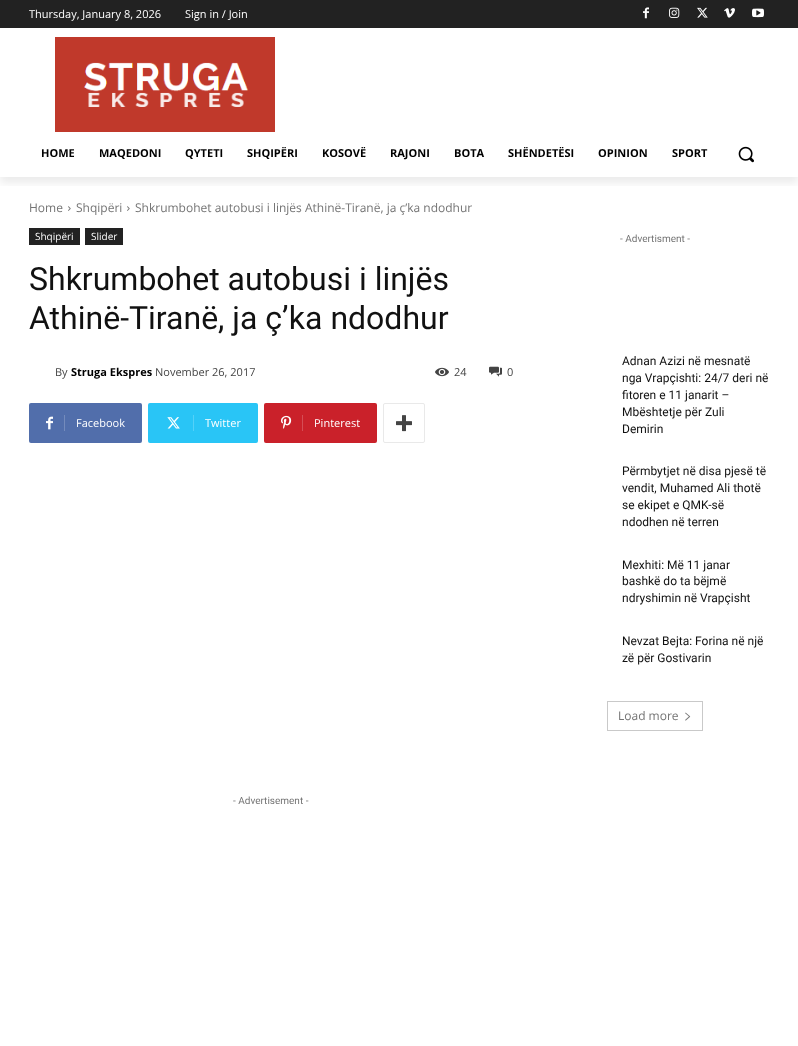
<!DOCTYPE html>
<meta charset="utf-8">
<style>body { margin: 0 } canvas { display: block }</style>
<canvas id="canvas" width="798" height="1046"></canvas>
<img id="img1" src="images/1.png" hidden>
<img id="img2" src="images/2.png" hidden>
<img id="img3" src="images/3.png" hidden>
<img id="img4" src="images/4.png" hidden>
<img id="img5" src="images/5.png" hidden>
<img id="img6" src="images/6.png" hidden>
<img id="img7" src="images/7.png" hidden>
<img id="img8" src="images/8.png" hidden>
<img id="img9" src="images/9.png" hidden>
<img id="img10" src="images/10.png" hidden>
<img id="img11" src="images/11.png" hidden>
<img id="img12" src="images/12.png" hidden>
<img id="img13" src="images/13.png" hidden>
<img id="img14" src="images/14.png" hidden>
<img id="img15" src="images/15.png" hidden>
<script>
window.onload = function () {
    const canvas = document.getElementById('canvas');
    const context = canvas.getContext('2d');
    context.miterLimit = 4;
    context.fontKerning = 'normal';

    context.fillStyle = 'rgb(255, 255, 255)';
    context.fillRect(0, 0, 798, 1046);
    context.fillStyle = 'rgb(34, 34, 34)';
    context.fillRect(0, 0, 798, 28);
    context.drawImage(document.getElementById('img1'), 643, 7, 6, 12);
    context.drawImage(document.getElementById('img2'), 669, 7, 11, 11);
    context.drawImage(document.getElementById('img3'), 697, 7, 11, 11);
    context.drawImage(document.getElementById('img4'), 724, 8, 11, 10);
    context.drawImage(document.getElementById('img5'), 752, 8, 12, 10);
    context.drawImage(document.getElementById('img6'), 55, 37, 220, 95);
    context.save();
    context.beginPath();
    context.rect(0, 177, 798, 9);
    context.clip();
    context.fillStyle = 'rgba(0, 0, 0, 0.08)';
    context.filter = 'blur(4px)';
    context.beginPath();
    context.rect(0, 6, 798, 177);
    context.fill();
    context.filter = 'none';
    context.restore();
    context.drawImage(document.getElementById('img7'), 738, 146, 16, 17);
    context.drawImage(document.getElementById('img8'), 68, 206, 3, 5);
    context.drawImage(document.getElementById('img8'), 127, 206, 3, 5);
    context.fillRect(29, 228, 51, 17);
    context.fillRect(85, 228, 38, 17);
    context.drawImage(document.getElementById('img9'), 435, 367, 14, 10);
    context.drawImage(document.getElementById('img10'), 489, 366, 13, 11);
    context.fillStyle = 'rgb(81, 110, 171)';
    context.beginPath();
    context.roundRect(64, 403, 78, 40, [0, 2, 2, 0]);
    context.fill();
    context.beginPath();
    context.roundRect(29, 403, 41, 40, [2, 0, 0, 2]);
    context.fill();
    context.drawImage(document.getElementById('img11'), 46, 416, 7, 14);
    context.fillStyle = 'rgb(116, 139, 188)';
    context.fillRect(64, 415, 1, 16);
    context.fillStyle = 'rgb(41, 197, 246)';
    context.beginPath();
    context.roundRect(193, 403, 65, 40, [0, 2, 2, 0]);
    context.fill();
    context.beginPath();
    context.roundRect(148, 403, 51, 40, [2, 0, 0, 2]);
    context.fill();
    context.drawImage(document.getElementById('img12'), 167, 417, 13, 12);
    context.fillStyle = 'rgb(84, 209, 248)';
    context.fillRect(193, 415, 1, 16);
    context.fillStyle = 'rgb(202, 33, 42)';
    context.beginPath();
    context.roundRect(302, 403, 75, 40, [0, 2, 2, 0]);
    context.fill();
    context.beginPath();
    context.roundRect(264, 403, 44, 40, [2, 0, 0, 2]);
    context.fill();
    context.drawImage(document.getElementById('img13'), 281, 415, 11, 14);
    context.fillStyle = 'rgb(213, 77, 85)';
    context.fillRect(302, 415, 1, 16);
    context.beginPath();
    context.roundRect(383.5, 403.5, 41, 39, 1.5);
    context.strokeStyle = 'rgb(233, 233, 233)';
    context.stroke();
    context.drawImage(document.getElementById('img14'), 396, 415, 16, 17);
    context.strokeStyle = 'rgb(201, 201, 201)';
    context.strokeRect(607.5, 701.5, 95, 29);
    context.drawImage(document.getElementById('img15'), 685, 712, 6, 9);
    context.font = '11px Open Sans';
    context.fillStyle = 'rgb(255, 255, 255)';
    context.fillText('Thursday, January 8, 2026', 29, 18);
    context.fillText('Sign in / Join', 185, 18);
    context.font = 'bold 11px Open Sans';
    context.fillStyle = 'rgb(0, 0, 0)';
    context.fillText('HOME', 41, 157);
    context.fillText('MAQEDONI', 99, 157);
    context.fillText('QYTETI', 185, 157);
    context.fillText('SHQIPËRI', 247, 157);
    context.fillText('KOSOVË', 322, 157);
    context.fillText('RAJONI', 390, 157);
    context.fillText('BOTA', 454, 157);
    context.fillText('SHËNDETËSI', 508, 157);
    context.fillText('OPINION', 598, 157);
    context.fillText('SPORT', 672, 157);
    context.font = '12px Open Sans';
    context.fillStyle = 'rgb(116, 116, 116)';
    context.fillText('Home', 29, 212);
    context.fillText('Shqipëri', 76, 212);
    context.fillText('Shkrumbohet autobusi i linjës Athinë-Tiranë, ja ç’ka ndodhur', 135, 212);
    context.font = '10px Open Sans';
    context.fillStyle = 'rgb(255, 255, 255)';
    context.fillText('Shqipëri', 35, 240);
    context.fillText('Slider', 91, 240);
    context.font = '32px Roboto';
    context.fillStyle = 'rgb(17, 17, 17)';
    context.fillText('Shkrumbohet autobusi i linjës', 29, 290);
    context.fillText('Athinë-Tiranë, ja ç’ka ndodhur', 29, 329);
    context.font = '11px Open Sans';
    context.fillStyle = 'rgb(68, 68, 68)';
    context.fillText('By', 55, 376);
    context.font = 'bold 11px Open Sans';
    context.fillStyle = 'rgb(0, 0, 0)';
    context.fillText('Struga Ekspres', 71, 376);
    context.font = '11px Open Sans';
    context.fillStyle = 'rgb(68, 68, 68)';
    context.fillText('November 26, 2017', 155, 376);
    context.fillText('24', 454, 376);
    context.fillText('0', 507, 376);
    context.fillStyle = 'rgb(255, 255, 255)';
    context.fillText('Facebook', 76, 427);
    context.fillText('Twitter', 205, 427);
    context.fillText('Pinterest', 314, 427);
    context.font = '10px Roboto';
    context.fillStyle = 'rgb(116, 116, 116)';
    context.fillText('- Advertisement -', 233, 804);
    context.fillText('- Advertisment -', 620, 242);
    context.font = '12px Roboto';
    context.fillStyle = 'rgb(17, 17, 17)';
    context.fillText('Adnan Azizi në mesnatë', 622, 365);
    context.fillText('nga Vrapçishti: 24/7 deri në', 622, 382);
    context.fillText('fitoren e 11 janarit –', 622, 399);
    context.fillText('Mbështetje për Zuli', 622, 416);
    context.fillText('Demirin', 622, 433);
    context.fillText('Përmbytjet në disa pjesë të', 622, 475);
    context.fillText('vendit, Muhamed Ali thotë', 622, 492);
    context.fillText('se ekipet e QMK-së', 622, 509);
    context.fillText('ndodhen në terren', 622, 526);
    context.fillText('Mexhiti: Më 11 janar', 622, 569);
    context.fillText('bashkë do ta bëjmë', 622, 585);
    context.fillText('ndryshimin në Vrapçisht', 622, 602);
    context.fillText('Nevzat Bejta: Forina në një', 622, 645);
    context.fillText('zë për Gostivarin', 622, 662);
    context.font = '12px Open Sans';
    context.fillStyle = 'rgb(116, 116, 116)';
    context.fillText('Load more', 618, 720);
};
</script>
